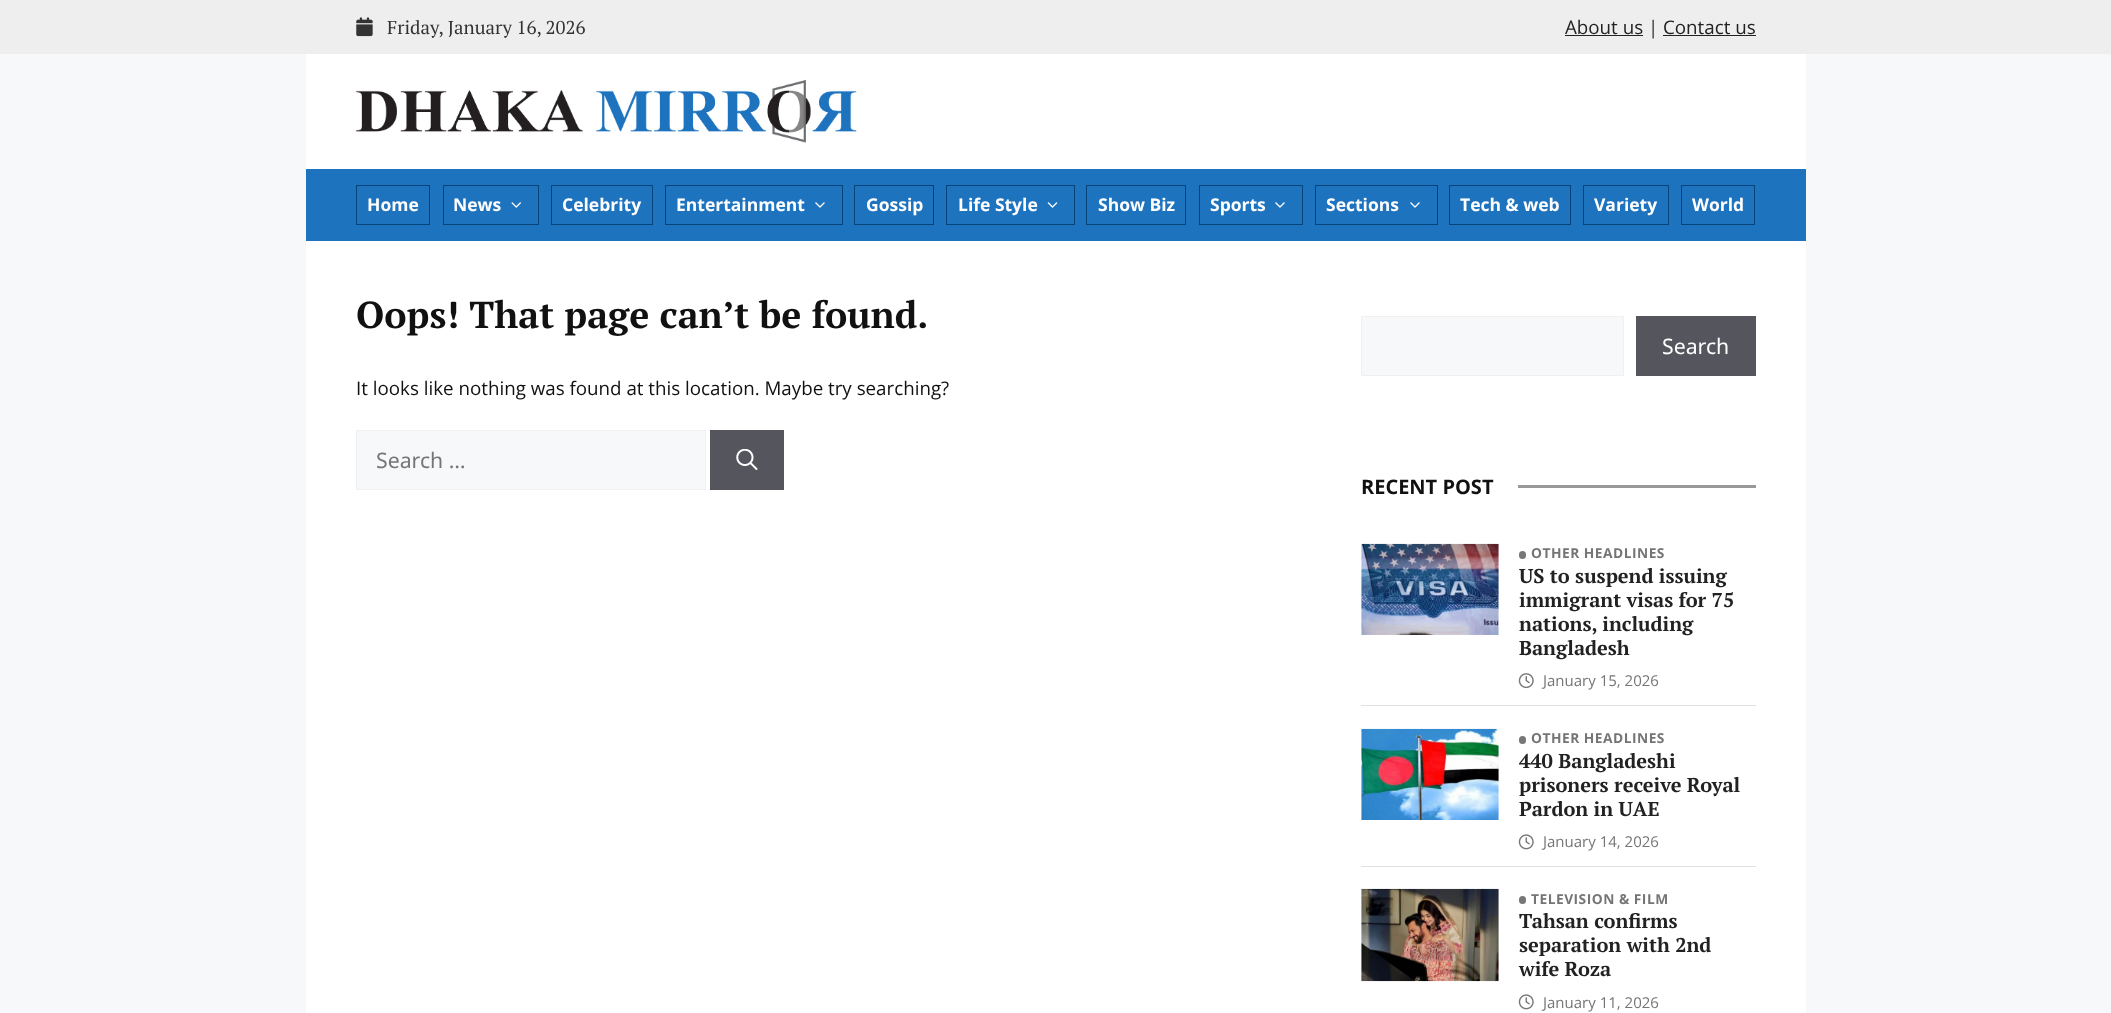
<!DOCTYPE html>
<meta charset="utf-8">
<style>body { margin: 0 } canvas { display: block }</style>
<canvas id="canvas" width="2111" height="1013"></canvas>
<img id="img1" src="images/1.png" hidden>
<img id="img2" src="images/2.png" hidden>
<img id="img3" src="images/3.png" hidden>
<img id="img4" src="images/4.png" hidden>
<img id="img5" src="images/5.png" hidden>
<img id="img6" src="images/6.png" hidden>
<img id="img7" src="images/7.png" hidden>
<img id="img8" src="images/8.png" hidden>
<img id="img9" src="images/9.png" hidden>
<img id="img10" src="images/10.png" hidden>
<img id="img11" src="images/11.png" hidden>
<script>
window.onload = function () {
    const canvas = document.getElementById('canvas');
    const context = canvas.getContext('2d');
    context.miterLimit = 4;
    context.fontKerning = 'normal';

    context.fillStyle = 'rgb(247, 248, 249)';
    context.fillRect(0, 0, 2111, 1013);
    context.fillStyle = 'rgb(238, 238, 238)';
    context.fillRect(0, 0, 2111, 54);
    context.drawImage(document.getElementById('img1'), 356, 17, 17, 20);
    context.fillStyle = 'rgb(34, 34, 34)';
    context.fillRect(1565, 35, 78, 1);
    context.fillRect(1663, 35, 93, 1);
    context.fillStyle = 'rgb(255, 255, 255)';
    context.fillRect(306, 54, 1500, 115);
    context.drawImage(document.getElementById('img2'), 356, 79, 501, 64);
    context.fillStyle = 'rgb(30, 115, 190)';
    context.fillRect(306, 169, 1500, 72);
    context.strokeStyle = 'rgb(6, 67, 120)';
    context.strokeRect(356.5, 185.5, 73, 39);
    context.strokeRect(443.5, 185.5, 95, 39);
    context.drawImage(document.getElementById('img3'), 511, 202, 10, 6);
    context.strokeRect(551.5, 185.5, 101, 39);
    context.strokeRect(665.5, 185.5, 177, 39);
    context.drawImage(document.getElementById('img4'), 815, 202, 10, 6);
    context.strokeRect(854.5, 185.5, 79, 39);
    context.strokeRect(946.5, 185.5, 128, 39);
    context.drawImage(document.getElementById('img5'), 1047, 202, 11, 6);
    context.strokeRect(1086.5, 185.5, 99, 39);
    context.strokeRect(1199.5, 185.5, 103, 39);
    context.drawImage(document.getElementById('img4'), 1275, 202, 10, 6);
    context.strokeRect(1315.5, 185.5, 122, 39);
    context.drawImage(document.getElementById('img4'), 1410, 202, 10, 6);
    context.strokeRect(1449.5, 185.5, 121, 39);
    context.strokeRect(1583.5, 185.5, 85, 39);
    context.strokeRect(1681.5, 185.5, 73, 39);
    context.fillStyle = 'rgb(255, 255, 255)';
    context.fillRect(306, 241, 1500, 772);
    context.fillStyle = 'rgb(247, 248, 249)';
    context.beginPath();
    context.rect(356.5, 430.5, 349, 59);
    context.fill();
    context.strokeStyle = 'rgb(240, 240, 240)';
    context.stroke();
    context.fillStyle = 'rgb(85, 85, 94)';
    context.fillRect(710, 430, 74, 60);
    context.drawImage(document.getElementById('img6'), 736, 449, 22, 21);
    context.fillStyle = 'rgb(247, 248, 249)';
    context.beginPath();
    context.rect(1361.5, 316.5, 262, 59);
    context.fill();
    context.stroke();
    context.fillStyle = 'rgb(85, 85, 94)';
    context.fillRect(1636, 316, 120, 60);
    context.fillStyle = 'rgb(153, 153, 153)';
    context.fillRect(1518, 485, 238, 3);
    context.fillStyle = 'rgb(222, 226, 230)';
    context.fillRect(1361, 705, 395, 1);
    context.drawImage(document.getElementById('img7'), 1361, 543, 138, 92);
    context.fillStyle = 'rgb(119, 119, 119)';
    context.beginPath();
    context.roundRect(1519, 551, 7, 8, 3.5);
    context.fill();
    context.drawImage(document.getElementById('img8'), 1518, 673, 16, 16);
    context.fillStyle = 'rgb(222, 226, 230)';
    context.fillRect(1361, 866, 395, 1);
    context.drawImage(document.getElementById('img9'), 1361, 728, 138, 92);
    context.fillStyle = 'rgb(119, 119, 119)';
    context.beginPath();
    context.roundRect(1519, 736, 7, 8, 3.5);
    context.fill();
    context.drawImage(document.getElementById('img10'), 1518, 834, 16, 16);
    context.drawImage(document.getElementById('img11'), 1361, 888, 138, 94);
    context.beginPath();
    context.roundRect(1519, 896, 7, 8, 3.5);
    context.fill();
    context.drawImage(document.getElementById('img10'), 1518, 994, 16, 16);
    context.font = '18.75px PT Serif';
    context.fillStyle = 'rgb(51, 51, 51)';
    context.fillText('Friday, January 16, 2026', 387, 34);
    context.font = '18.75px Open Sans';
    context.fillStyle = 'rgb(34, 34, 34)';
    context.fillText('About us', 1565, 34);
    context.fillStyle = 'rgb(51, 51, 51)';
    context.fillText('|', 1648, 34);
    context.fillStyle = 'rgb(34, 34, 34)';
    context.fillText('Contact us', 1663, 34);
    context.font = 'bold 17.5px Open Sans';
    context.fillStyle = 'rgb(255, 255, 255)';
    context.fillText('Home', 367, 211);
    context.fillText('News', 453, 211);
    context.fillText('Celebrity', 562, 211);
    context.fillText('Entertainment', 676, 211);
    context.fillText('Gossip', 866, 211);
    context.fillText('Life Style', 958, 211);
    context.fillText('Show Biz', 1098, 211);
    context.fillText('Sports', 1210, 211);
    context.fillText('Sections', 1326, 211);
    context.fillText('Tech & web', 1460, 211);
    context.fillText('Variety', 1594, 211);
    context.fillText('World', 1692, 211);
    context.font = 'bold 37.5px PT Serif';
    context.fillStyle = 'rgb(17, 17, 17)';
    context.fillText('Oops! That page can’t be found.', 356, 328);
    context.font = '18.75px Open Sans';
    context.fillText('It looks like nothing was found at this location. Maybe try searching?', 356, 395);
    context.font = '21.25px Noto Sans';
    context.fillStyle = 'rgb(117, 117, 117)';
    context.fillText('Search …', 376, 468);
    context.fillStyle = 'rgb(255, 255, 255)';
    context.fillText('Search', 1662, 354);
    context.font = 'bold 20px Open Sans';
    context.fillStyle = 'rgb(17, 17, 17)';
    context.fillText('RECENT POST', 1361, 494);
    context.letterSpacing = '0.5px';
    context.font = 'bold 13.75px Open Sans';
    context.fillStyle = 'rgb(117, 117, 117)';
    context.fillText('OTHER HEADLINES', 1531, 558);
    context.letterSpacing = '0px';
    context.font = 'bold 20px PT Serif';
    context.fillStyle = 'rgb(34, 34, 34)';
    context.fillText('US to suspend issuing', 1519, 583);
    context.fillText('immigrant visas for 75', 1519, 607);
    context.fillText('nations, including', 1519, 631);
    context.fillText('Bangladesh', 1519, 655);
    context.font = '15px Open Sans';
    context.fillStyle = 'rgb(117, 117, 117)';
    context.fillText('January 15, 2026', 1543, 686);
    context.letterSpacing = '0.5px';
    context.font = 'bold 13.75px Open Sans';
    context.fillText('OTHER HEADLINES', 1531, 743);
    context.letterSpacing = '0px';
    context.font = 'bold 20px PT Serif';
    context.fillStyle = 'rgb(34, 34, 34)';
    context.fillText('440 Bangladeshi', 1519, 768);
    context.fillText('prisoners receive Royal', 1519, 792);
    context.fillText('Pardon in UAE', 1519, 816);
    context.font = '15px Open Sans';
    context.fillStyle = 'rgb(117, 117, 117)';
    context.fillText('January 14, 2026', 1543, 847);
    context.letterSpacing = '0.5px';
    context.font = 'bold 13.75px Open Sans';
    context.fillText('TELEVISION & FILM', 1531, 904);
    context.letterSpacing = '0px';
    context.font = 'bold 20px PT Serif';
    context.fillStyle = 'rgb(34, 34, 34)';
    context.fillText('Tahsan confirms', 1519, 928);
    context.fillText('separation with 2nd', 1519, 952);
    context.fillText('wife Roza', 1519, 976);
    context.font = '15px Open Sans';
    context.fillStyle = 'rgb(117, 117, 117)';
    context.fillText('January 11, 2026', 1543, 1008);
};
</script>
